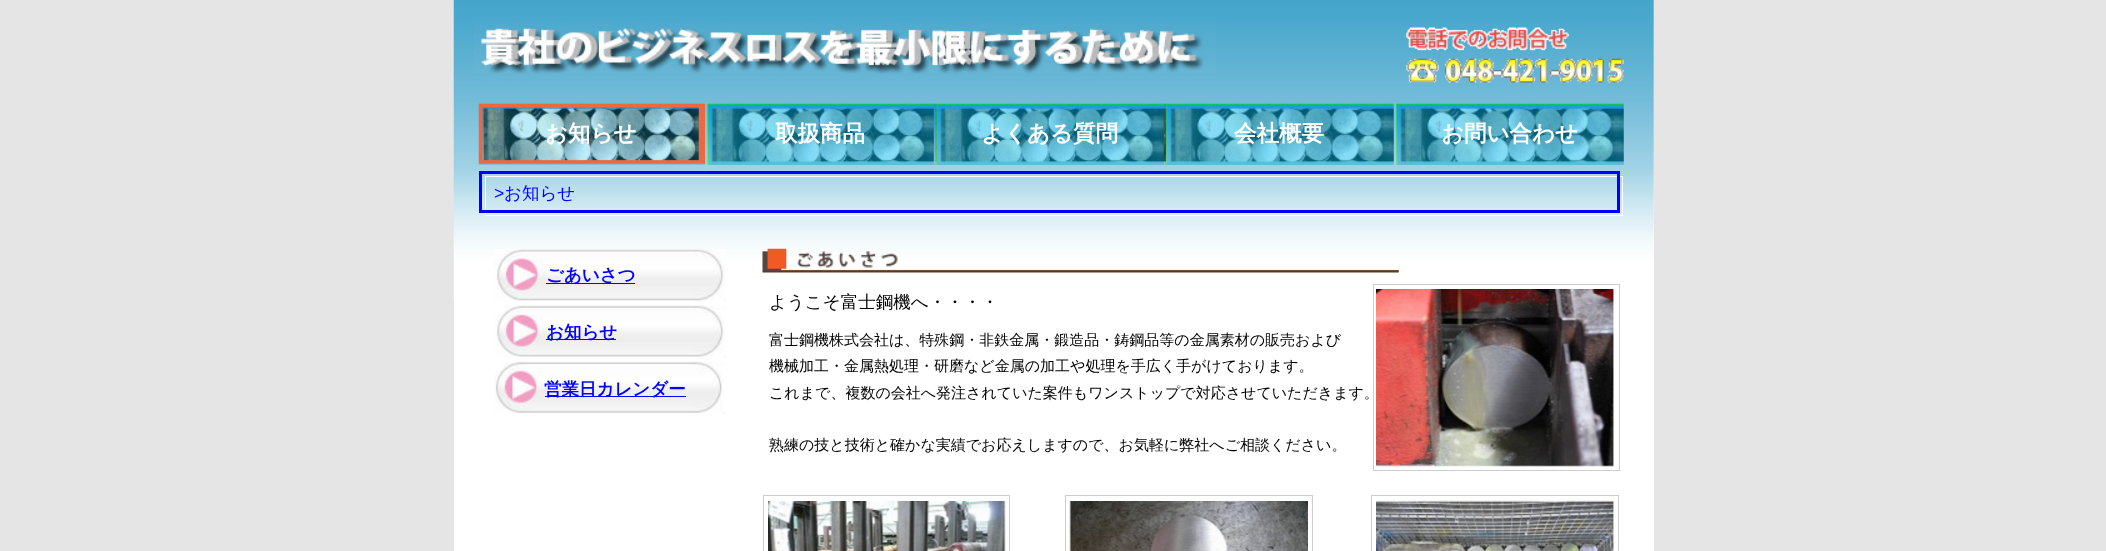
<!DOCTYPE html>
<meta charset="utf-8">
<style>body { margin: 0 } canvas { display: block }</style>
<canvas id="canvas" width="2106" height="551"></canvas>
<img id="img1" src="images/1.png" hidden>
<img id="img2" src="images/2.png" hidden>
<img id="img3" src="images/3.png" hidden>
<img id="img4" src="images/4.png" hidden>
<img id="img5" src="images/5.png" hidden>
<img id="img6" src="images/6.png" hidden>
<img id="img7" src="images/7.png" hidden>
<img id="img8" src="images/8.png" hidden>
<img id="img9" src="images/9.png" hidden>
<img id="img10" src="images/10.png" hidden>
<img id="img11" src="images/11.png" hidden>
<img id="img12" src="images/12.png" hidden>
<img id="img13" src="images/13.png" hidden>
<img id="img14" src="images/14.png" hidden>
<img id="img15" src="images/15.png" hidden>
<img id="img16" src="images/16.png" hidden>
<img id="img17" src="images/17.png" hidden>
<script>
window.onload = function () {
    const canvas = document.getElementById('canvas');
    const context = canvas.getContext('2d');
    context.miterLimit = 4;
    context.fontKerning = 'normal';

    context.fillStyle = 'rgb(229, 229, 229)';
    context.fillRect(0, 0, 2106, 551);
    context.fillStyle = 'rgb(255, 255, 255)';
    context.fillRect(454, 0, 1200, 551);
    context.drawImage(document.getElementById('img1'), 453, 0, 1201, 299);
    context.drawImage(document.getElementById('img2'), 474, 22, 742, 52);
    context.drawImage(document.getElementById('img3'), 1406, 27, 218, 56);
    context.drawImage(document.getElementById('img4'), 933, 103, 234, 62);
    context.drawImage(document.getElementById('img5'), 478, 102, 227, 63);
    context.drawImage(document.getElementById('img6'), 707, 102, 227, 63);
    context.drawImage(document.getElementById('img7'), 936, 102, 228, 63);
    context.drawImage(document.getElementById('img8'), 1166, 102, 228, 63);
    context.drawImage(document.getElementById('img9'), 1396, 102, 228, 63);
    context.strokeStyle = 'rgb(255, 255, 255)';
    context.strokeRect(485.5, 176.5, 1137, 39);
    context.strokeStyle = 'rgb(0, 0, 255)';
    context.lineWidth = 3;
    context.strokeRect(480.5, 172.5, 1138, 39);
    context.drawImage(document.getElementById('img10'), 494, 249, 232, 53);
    context.fillStyle = 'rgb(0, 0, 255)';
    context.fillRect(546, 283, 89, 1);
    context.drawImage(document.getElementById('img11'), 495, 305, 231, 53);
    context.fillRect(546, 339, 70, 1);
    context.drawImage(document.getElementById('img12'), 494, 361, 231, 53);
    context.fillRect(545, 396, 141, 1);
    context.drawImage(document.getElementById('img13'), 762, 248, 637, 25);
    context.drawImage(document.getElementById('img14'), 1376, 289, 238, 178);
    context.strokeStyle = 'rgb(204, 204, 204)';
    context.lineWidth = 1;
    context.strokeRect(1373.5, 284.5, 246, 186);
    context.strokeRect(763.5, 495.5, 246, 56);
    context.drawImage(document.getElementById('img15'), 768, 501, 238, 50);
    context.strokeRect(1065.5, 495.5, 247, 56);
    context.drawImage(document.getElementById('img16'), 1069, 501, 239, 50);
    context.strokeRect(1371.5, 495.5, 247, 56);
    context.drawImage(document.getElementById('img17'), 1376, 500, 238, 51);
    context.font = 'bold 22.5px WenQuanYi Zen Hei';
    context.fillStyle = 'rgb(255, 255, 255)';
    context.fillText('お知らせ', 545, 141);
    context.fillText('取扱商品', 775, 141);
    context.fillText('よくある質問', 981, 141);
    context.fillText('会社概要', 1234, 141);
    context.fillText('お問い合わせ', 1441, 141);
    context.font = '17.5px Liberation Sans';
    context.fillStyle = 'rgb(0, 0, 255)';
    context.fillText('>', 494, 199);
    context.font = '500 17.5px WenQuanYi Zen Hei';
    context.fillText('お知らせ', 504, 199);
    context.font = 'bold 17.5px WenQuanYi Zen Hei';
    context.fillText('ごあいさつ', 546, 281);
    context.fillText('お知らせ', 546, 338);
    context.fillText('営業日カレンダー', 544, 395);
    context.font = '500 17.5px WenQuanYi Zen Hei';
    context.fillStyle = 'rgb(0, 0, 0)';
    context.fillText('ようこそ富士鋼機へ・・・・', 769, 308);
    context.font = '500 15px WenQuanYi Zen Hei';
    context.fillText('富士鋼機株式会社は、特殊鋼・非鉄金属・鍛造品・鋳鋼品等の金属素材の販売および', 769, 345);
    context.fillText('機械加工・金属熱処理・研磨など金属の加工や処理を手広く手がけております。', 769, 371);
    context.fillText('これまで、複数の会社へ発注されていた案件もワンストップで対応させていただきます。', 769, 398);
    context.fillText('熟練の技と技術と確かな実績でお応えしますので、お気軽に弊社へご相談ください。', 769, 450);
};
</script>
